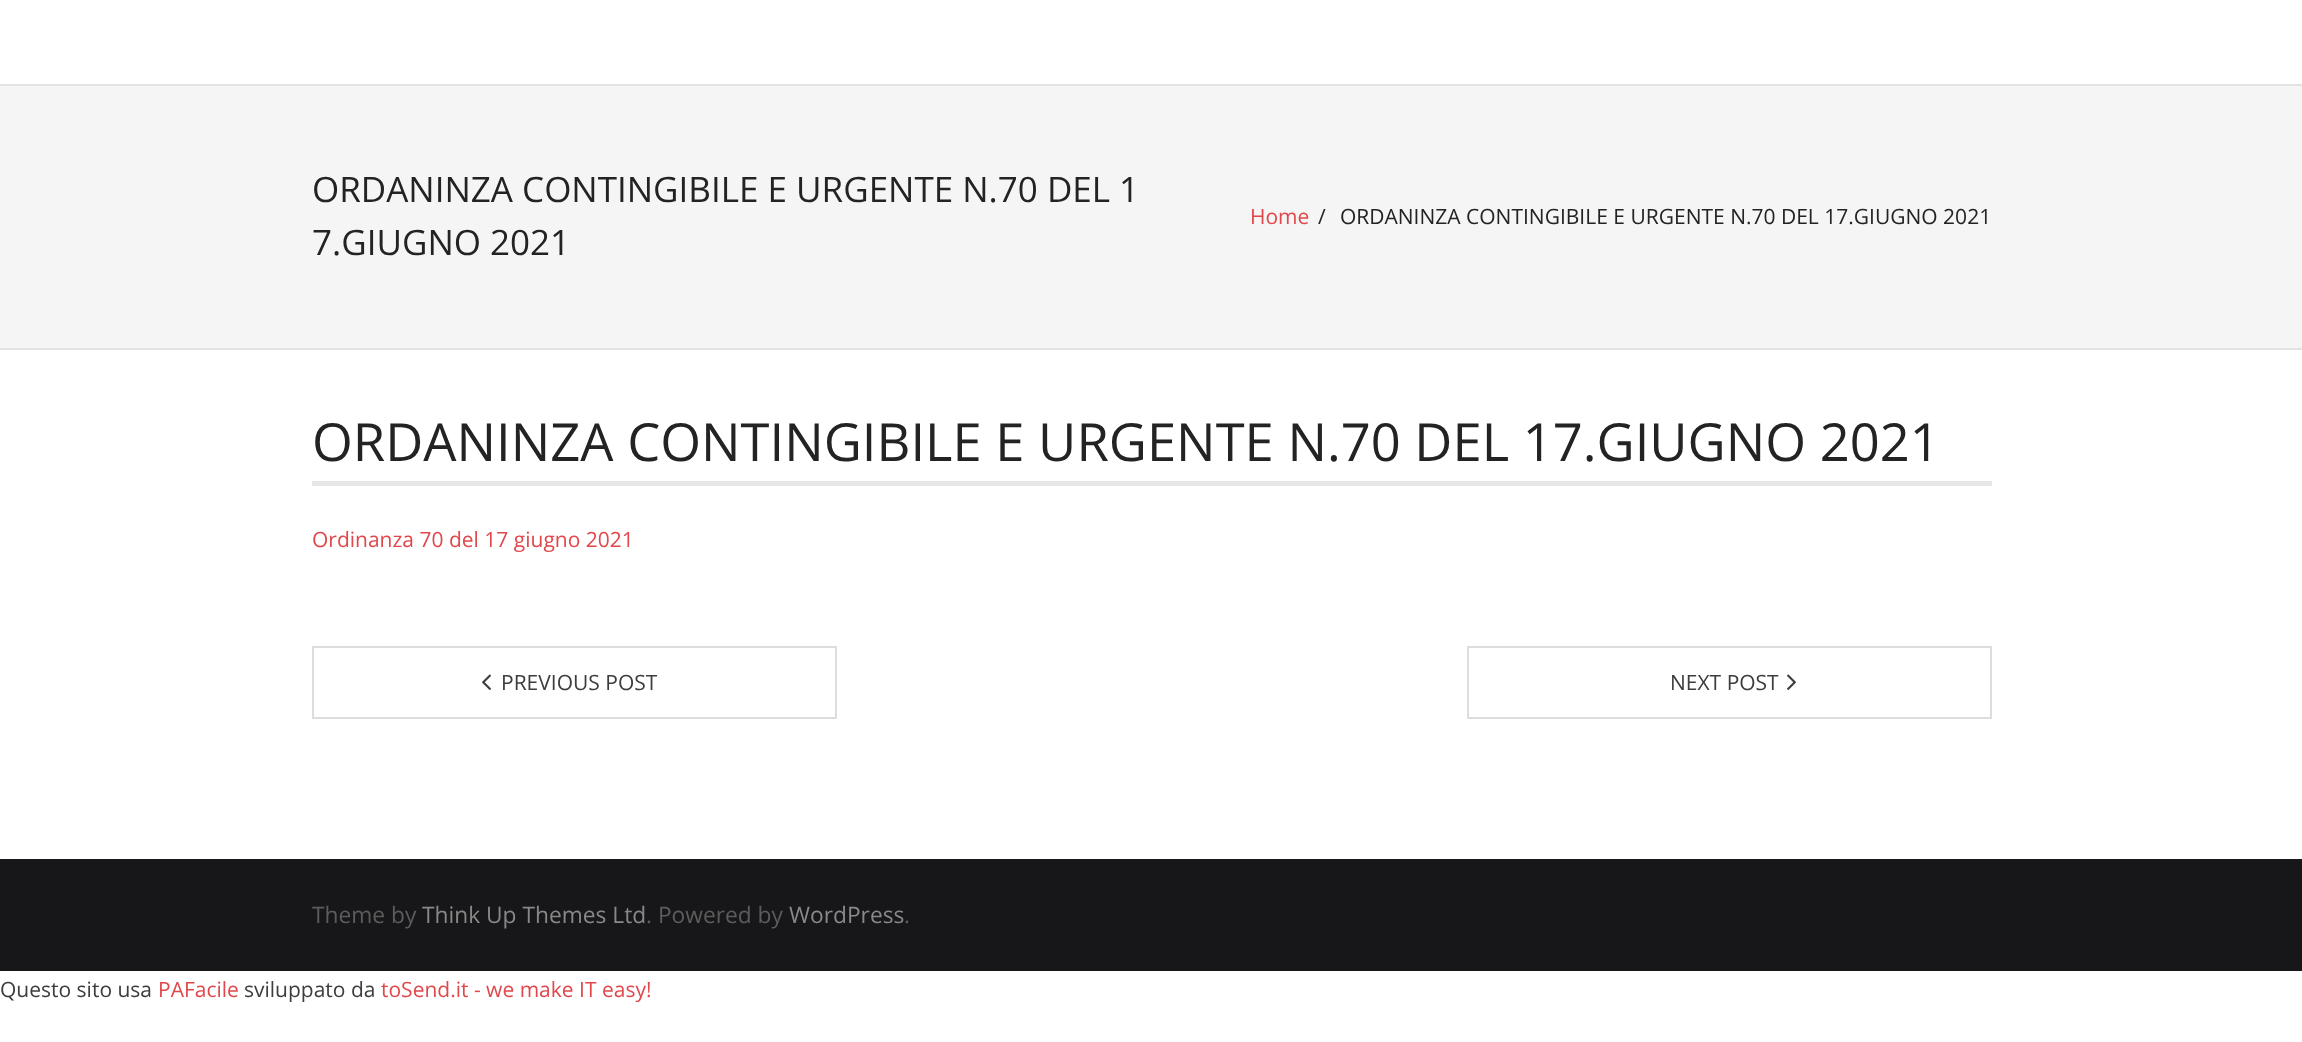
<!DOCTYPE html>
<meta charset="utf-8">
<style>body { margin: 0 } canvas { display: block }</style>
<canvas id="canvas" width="2302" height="1042"></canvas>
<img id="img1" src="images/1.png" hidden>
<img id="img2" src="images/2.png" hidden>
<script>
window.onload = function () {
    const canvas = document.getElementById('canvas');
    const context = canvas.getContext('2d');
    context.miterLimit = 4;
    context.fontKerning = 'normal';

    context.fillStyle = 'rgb(255, 255, 255)';
    context.fillRect(0, 0, 2302, 1042);
    context.fillStyle = 'rgb(227, 227, 227)';
    context.fillRect(0, 84, 2302, 2);
    context.fillStyle = 'rgb(245, 245, 245)';
    context.fillRect(0, 86, 2302, 262);
    context.fillStyle = 'rgb(227, 227, 227)';
    context.fillRect(0, 348, 2302, 2);
    context.fillStyle = 'rgb(231, 231, 231)';
    context.fillRect(312, 481, 1680, 5);
    context.strokeStyle = 'rgb(221, 221, 221)';
    context.lineWidth = 2;
    context.strokeRect(313, 647, 523, 71);
    context.drawImage(document.getElementById('img1'), 482, 674, 9, 16);
    context.strokeRect(1468, 647, 523, 71);
    context.drawImage(document.getElementById('img2'), 1787, 674, 9, 16);
    context.fillStyle = 'rgb(23, 23, 25)';
    context.fillRect(0, 859, 2302, 112);
    context.font = '35px Open Sans';
    context.fillStyle = 'rgb(35, 35, 35)';
    context.fillText('ORDANINZA CONTINGIBILE E URGENTE N.70 DEL 1', 312, 202);
    context.fillText('7.GIUGNO 2021', 312, 255);
    context.font = '21px Open Sans';
    context.fillStyle = 'rgb(224, 72, 76)';
    context.fillText('Home', 1250, 224);
    context.fillStyle = 'rgb(35, 35, 35)';
    context.fillText('/', 1318, 224);
    context.fillText('ORDANINZA CONTINGIBILE E URGENTE N.70 DEL 17.GIUGNO 2021', 1340, 224);
    context.font = '52.5px Open Sans';
    context.fillText('ORDANINZA CONTINGIBILE E URGENTE N.70 DEL 17.GIUGNO 2021', 312, 461);
    context.font = '21px Open Sans';
    context.fillStyle = 'rgb(224, 72, 76)';
    context.fillText('Ordinanza 70 del 17 giugno 2021', 312, 547);
    context.fillStyle = 'rgb(61, 61, 61)';
    context.fillText('PREVIOUS POST', 501, 690);
    context.fillText('NEXT POST', 1670, 690);
    context.font = '22.75px Open Sans';
    context.fillStyle = 'rgb(92, 92, 92)';
    context.fillText('Theme by', 312, 923);
    context.fillStyle = 'rgb(136, 136, 136)';
    context.fillText('Think Up Themes Ltd', 422, 923);
    context.fillStyle = 'rgb(92, 92, 92)';
    context.fillText('. Powered by', 646, 923);
    context.fillStyle = 'rgb(136, 136, 136)';
    context.fillText('WordPress', 789, 923);
    context.fillStyle = 'rgb(92, 92, 92)';
    context.fillText('.', 904, 923);
    context.font = '21px Open Sans';
    context.fillStyle = 'rgb(61, 61, 61)';
    context.fillText('Questo sito usa', 0, 997);
    context.fillStyle = 'rgb(224, 72, 76)';
    context.fillText('PAFacile', 158, 997);
    context.fillStyle = 'rgb(61, 61, 61)';
    context.fillText('sviluppato da', 244, 997);
    context.fillStyle = 'rgb(224, 72, 76)';
    context.fillText('toSend.it - we make IT easy!', 381, 997);
};
</script>
